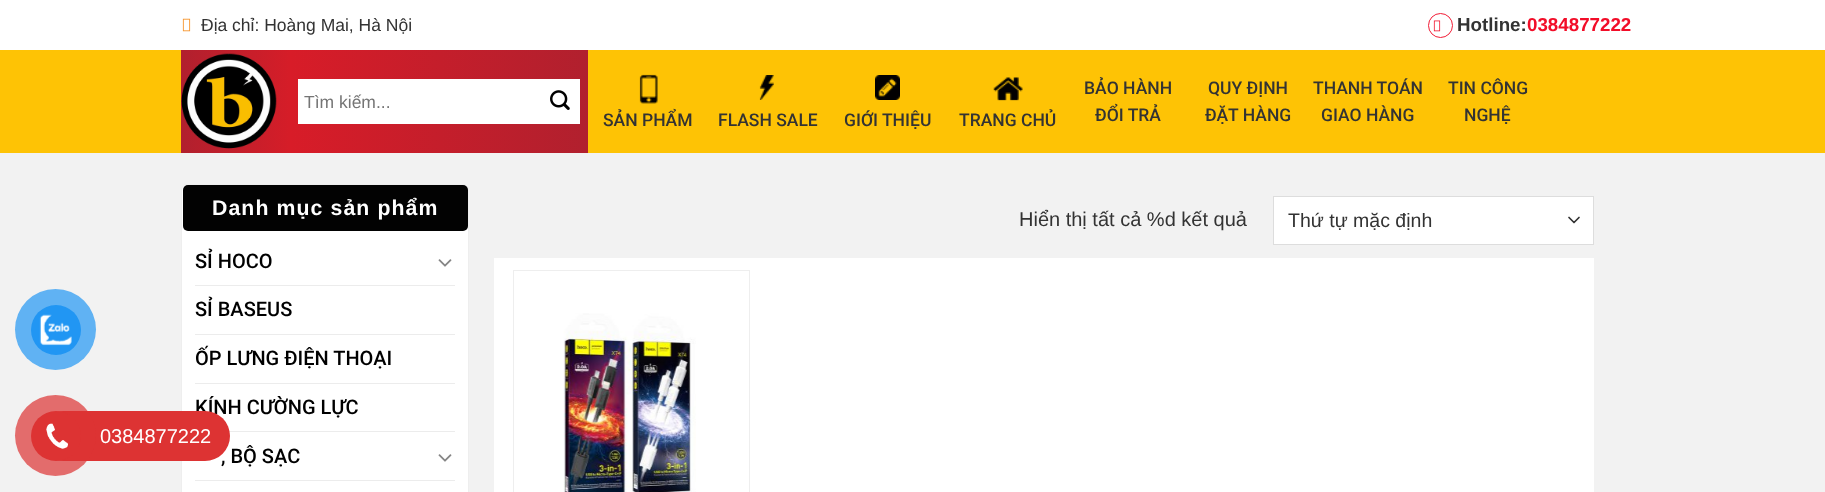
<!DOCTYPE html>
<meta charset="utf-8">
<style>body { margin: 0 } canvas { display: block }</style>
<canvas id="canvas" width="1825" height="492"></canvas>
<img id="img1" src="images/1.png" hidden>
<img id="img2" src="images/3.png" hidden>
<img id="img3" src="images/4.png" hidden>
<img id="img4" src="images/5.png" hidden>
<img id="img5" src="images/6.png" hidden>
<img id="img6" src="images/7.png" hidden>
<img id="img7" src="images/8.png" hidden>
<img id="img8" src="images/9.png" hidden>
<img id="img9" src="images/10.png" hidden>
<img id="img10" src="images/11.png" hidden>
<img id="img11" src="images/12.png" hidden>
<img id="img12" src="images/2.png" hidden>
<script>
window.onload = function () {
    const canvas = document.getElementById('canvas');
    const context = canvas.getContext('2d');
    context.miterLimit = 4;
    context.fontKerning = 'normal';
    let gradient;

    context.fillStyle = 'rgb(242, 242, 242)';
    context.fillRect(0, 0, 1825, 492);
    context.fillStyle = 'rgb(96, 178, 243)';
    context.beginPath();
    context.arc(55.5, 329.5, 40.5, 0, 2 * Math.PI);
    context.fill();
    context.fillStyle = 'rgb(33, 150, 243)';
    context.beginPath();
    context.arc(56, 330, 25, 0, 2 * Math.PI);
    context.fill();
    context.drawImage(document.getElementById('img1'), 39, 314, 33, 32);
    context.fillStyle = 'rgb(254, 195, 5)';
    context.fillRect(0, 50, 1825, 103);
    context.fillStyle = 'rgb(255, 255, 255)';
    context.fillRect(0, 0, 1825, 50);
    context.drawImage(document.getElementById('img2'), 182, 18, 9, 14);
    context.beginPath();
    context.arc(1440.5, 25.5, 12, 0, 2 * Math.PI);
    context.strokeStyle = 'rgb(242, 28, 54)';
    context.stroke();
    context.drawImage(document.getElementById('img3'), 1433, 20, 8, 12);
    gradient = context.createLinearGradient(181, 101, 290, 101);
    gradient.addColorStop(0, 'rgb(177, 32, 46)');
    gradient.addColorStop(1, 'rgb(213, 29, 40)');
    context.fillStyle = gradient;
    context.fillRect(181, 50, 109, 103);
    context.drawImage(document.getElementById('img4'), 181, 53, 96, 96);
    gradient = context.createLinearGradient(290, 101, 588, 101);
    gradient.addColorStop(0, 'rgb(216, 28, 40)');
    gradient.addColorStop(1, 'rgb(177, 32, 46)');
    context.fillStyle = gradient;
    context.fillRect(290, 50, 298, 103);
    context.fillStyle = 'rgb(255, 255, 255)';
    context.fillRect(298, 79, 282, 45);
    context.drawImage(document.getElementById('img5'), 550, 90, 20, 20);
    context.drawImage(document.getElementById('img6'), 639, 74, 19, 30);
    context.drawImage(document.getElementById('img7'), 759, 75, 15, 25);
    context.drawImage(document.getElementById('img8'), 875, 75, 25, 25);
    context.drawImage(document.getElementById('img9'), 993, 77, 30, 24);
    context.beginPath();
    context.roundRect(181.5, 184.5, 287, 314, 5.5);
    context.fill();
    context.strokeStyle = 'rgb(238, 238, 238)';
    context.stroke();
    context.fillStyle = 'rgb(2, 2, 2)';
    context.beginPath();
    context.roundRect(183, 185, 285, 46, 5);
    context.fill();
    context.drawImage(document.getElementById('img10'), 438, 259, 14, 8);
    context.fillStyle = 'rgb(236, 236, 236)';
    context.fillRect(195, 285, 260, 1);
    context.fillRect(195, 334, 260, 1);
    context.fillRect(195, 383, 260, 1);
    context.fillRect(229, 431, 226, 1);
    context.drawImage(document.getElementById('img10'), 438, 454, 14, 8);
    context.fillRect(195, 480, 260, 1);
    context.fillStyle = 'rgb(255, 255, 255)';
    context.fillRect(1274, 197, 319, 47);
    context.beginPath();
    context.moveTo(1569, 217.5);
    context.lineTo(1574, 222.5);
    context.lineTo(1579, 217.5);
    context.strokeStyle = 'rgb(51, 51, 51)';
    context.lineWidth = 1.7;
    context.lineCap = 'round';
    context.lineJoin = 'round';
    context.stroke();
    context.strokeStyle = 'rgb(221, 221, 221)';
    context.lineWidth = 1;
    context.lineJoin = 'miter';
    context.strokeRect(1273.5, 196.5, 320, 48);
    context.fillRect(494, 258, 1100, 234);
    context.strokeStyle = 'rgb(238, 238, 238)';
    context.strokeRect(513.5, 270.5, 236, 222);
    context.drawImage(document.getElementById('img11'), 563, 313, 133, 179);
    context.font = '17.5px Liberation Sans';
    context.fillStyle = 'rgb(51, 51, 51)';
    context.fillText('Địa chỉ: Hoàng Mai, Hà Nội', 201, 31);
    context.font = 'bold 18.75px Liberation Sans';
    context.fillText('Hotline:', 1457, 31);
    context.fillStyle = 'rgb(242, 13, 40)';
    context.fillText('0384877222', 1527, 31);
    context.font = '17.5px Liberation Sans';
    context.fillStyle = 'rgb(117, 117, 117)';
    context.fillText('Tìm kiếm...', 304, 108);
    context.font = '500 17.5px Roboto';
    context.fillStyle = 'rgb(51, 51, 51)';
    context.fillText('BẢO HÀNH', 1084, 94);
    context.fillText('ĐỔI TRẢ', 1095, 121);
    context.fillText('QUY ĐỊNH', 1208, 94);
    context.fillText('ĐẶT HÀNG', 1205, 121);
    context.fillText('THANH TOÁN', 1313, 94);
    context.fillText('GIAO HÀNG', 1321, 121);
    context.fillText('TIN CÔNG', 1448, 94);
    context.fillText('NGHỆ', 1464, 121);
    context.fillText('SẢN PHẨM', 603, 126);
    context.fillText('FLASH SALE', 718, 126);
    context.fillText('GIỚI THIỆU', 844, 126);
    context.fillText('TRANG CHỦ', 959, 126);
    context.letterSpacing = '1.1px';
    context.font = 'bold 21.25px Liberation Sans';
    context.fillStyle = 'rgb(255, 255, 255)';
    context.fillText('Danh mục sản phẩm', 212, 215);
    context.letterSpacing = '0px';
    context.font = '500 20px Roboto';
    context.fillStyle = 'rgb(0, 0, 0)';
    context.fillText('SỈ HOCO', 195, 268);
    context.fillText('SỈ BASEUS', 195, 316);
    context.fillText('ỐP LƯNG ĐIỆN THOẠI', 195, 365);
    context.fillText('KÍNH CƯỜNG LỰC', 195, 414);
    context.fillText(', BỘ SẠC', 221, 463);
    context.fillStyle = 'rgb(221, 51, 51)';
    context.beginPath();
    context.roundRect(38, 411, 192, 50, 25);
    context.fill();
    context.fillStyle = 'rgba(221, 51, 51, 0.7)';
    context.beginPath();
    context.arc(55.5, 435.5, 40.5, 0, 2 * Math.PI);
    context.fill();
    context.fillStyle = 'rgb(221, 51, 51)';
    context.beginPath();
    context.arc(56, 436, 25, 0, 2 * Math.PI);
    context.fill();
    context.drawImage(document.getElementById('img12'), 46, 423, 22, 26);
    context.font = '20px Liberation Sans';
    context.fillStyle = 'rgb(255, 255, 255)';
    context.fillText('0384877222', 100, 443);
    context.fillStyle = 'rgb(51, 51, 51)';
    context.fillText('Hiển thị tất cả %d kết quả', 1019, 226);
    context.font = '19.5px Liberation Sans';
    context.fillText('Thứ tự mặc định', 1288, 227);
};
</script>
